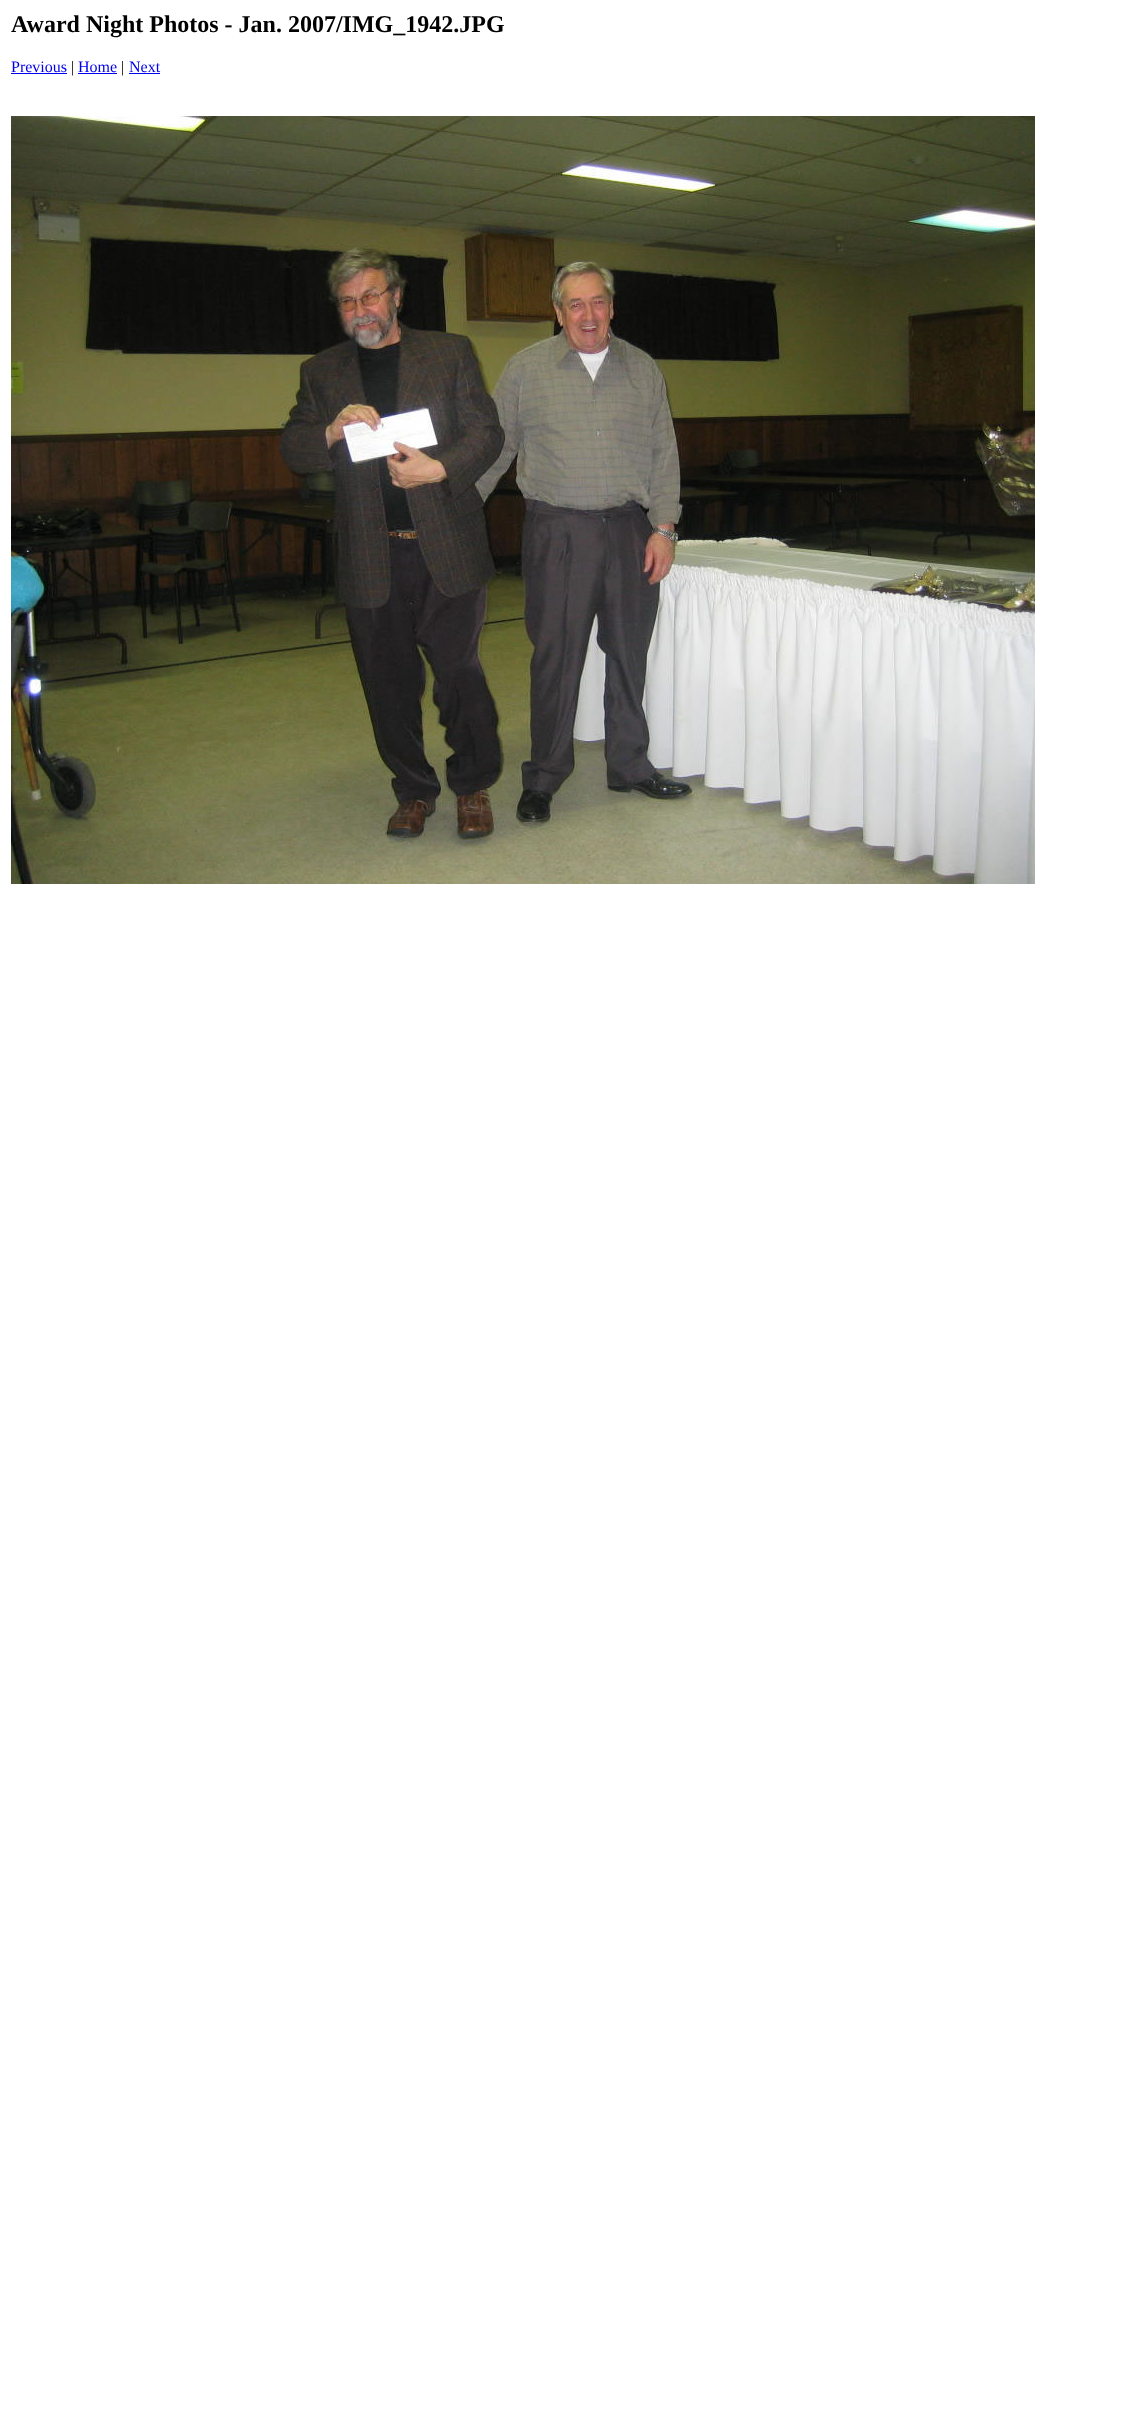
<!DOCTYPE html>
<meta charset="utf-8">
<style>body { margin: 0 } canvas { display: block }</style>
<canvas id="canvas" width="1134" height="2409"></canvas>
<img id="img1" src="images/1.png" hidden>
<script>
window.onload = function () {
    const canvas = document.getElementById('canvas');
    const context = canvas.getContext('2d');
    context.miterLimit = 4;
    context.fontKerning = 'normal';

    context.fillStyle = 'rgb(255, 255, 255)';
    context.fillRect(0, 0, 1134, 2409);
    context.fillStyle = 'rgb(0, 0, 238)';
    context.fillRect(11, 73, 56, 1);
    context.fillRect(78, 73, 39, 1);
    context.fillRect(129, 73, 31, 1);
    context.drawImage(document.getElementById('img1'), 11, 116, 1024, 768);
    context.font = 'bold 24px Liberation Serif';
    context.fillStyle = 'rgb(0, 0, 0)';
    context.fillText('Award Night Photos - Jan. 2007/IMG_1942.JPG', 11, 32);
    context.font = '16px Liberation Serif';
    context.fillStyle = 'rgb(0, 0, 238)';
    context.fillText('Previous', 11, 72);
    context.fillStyle = 'rgb(0, 0, 0)';
    context.fillText('|', 71, 72);
    context.fillStyle = 'rgb(0, 0, 238)';
    context.fillText('Home', 78, 72);
    context.fillStyle = 'rgb(0, 0, 0)';
    context.fillText('|', 121, 72);
    context.fillStyle = 'rgb(0, 0, 238)';
    context.fillText('Next', 129, 72);
};
</script>
